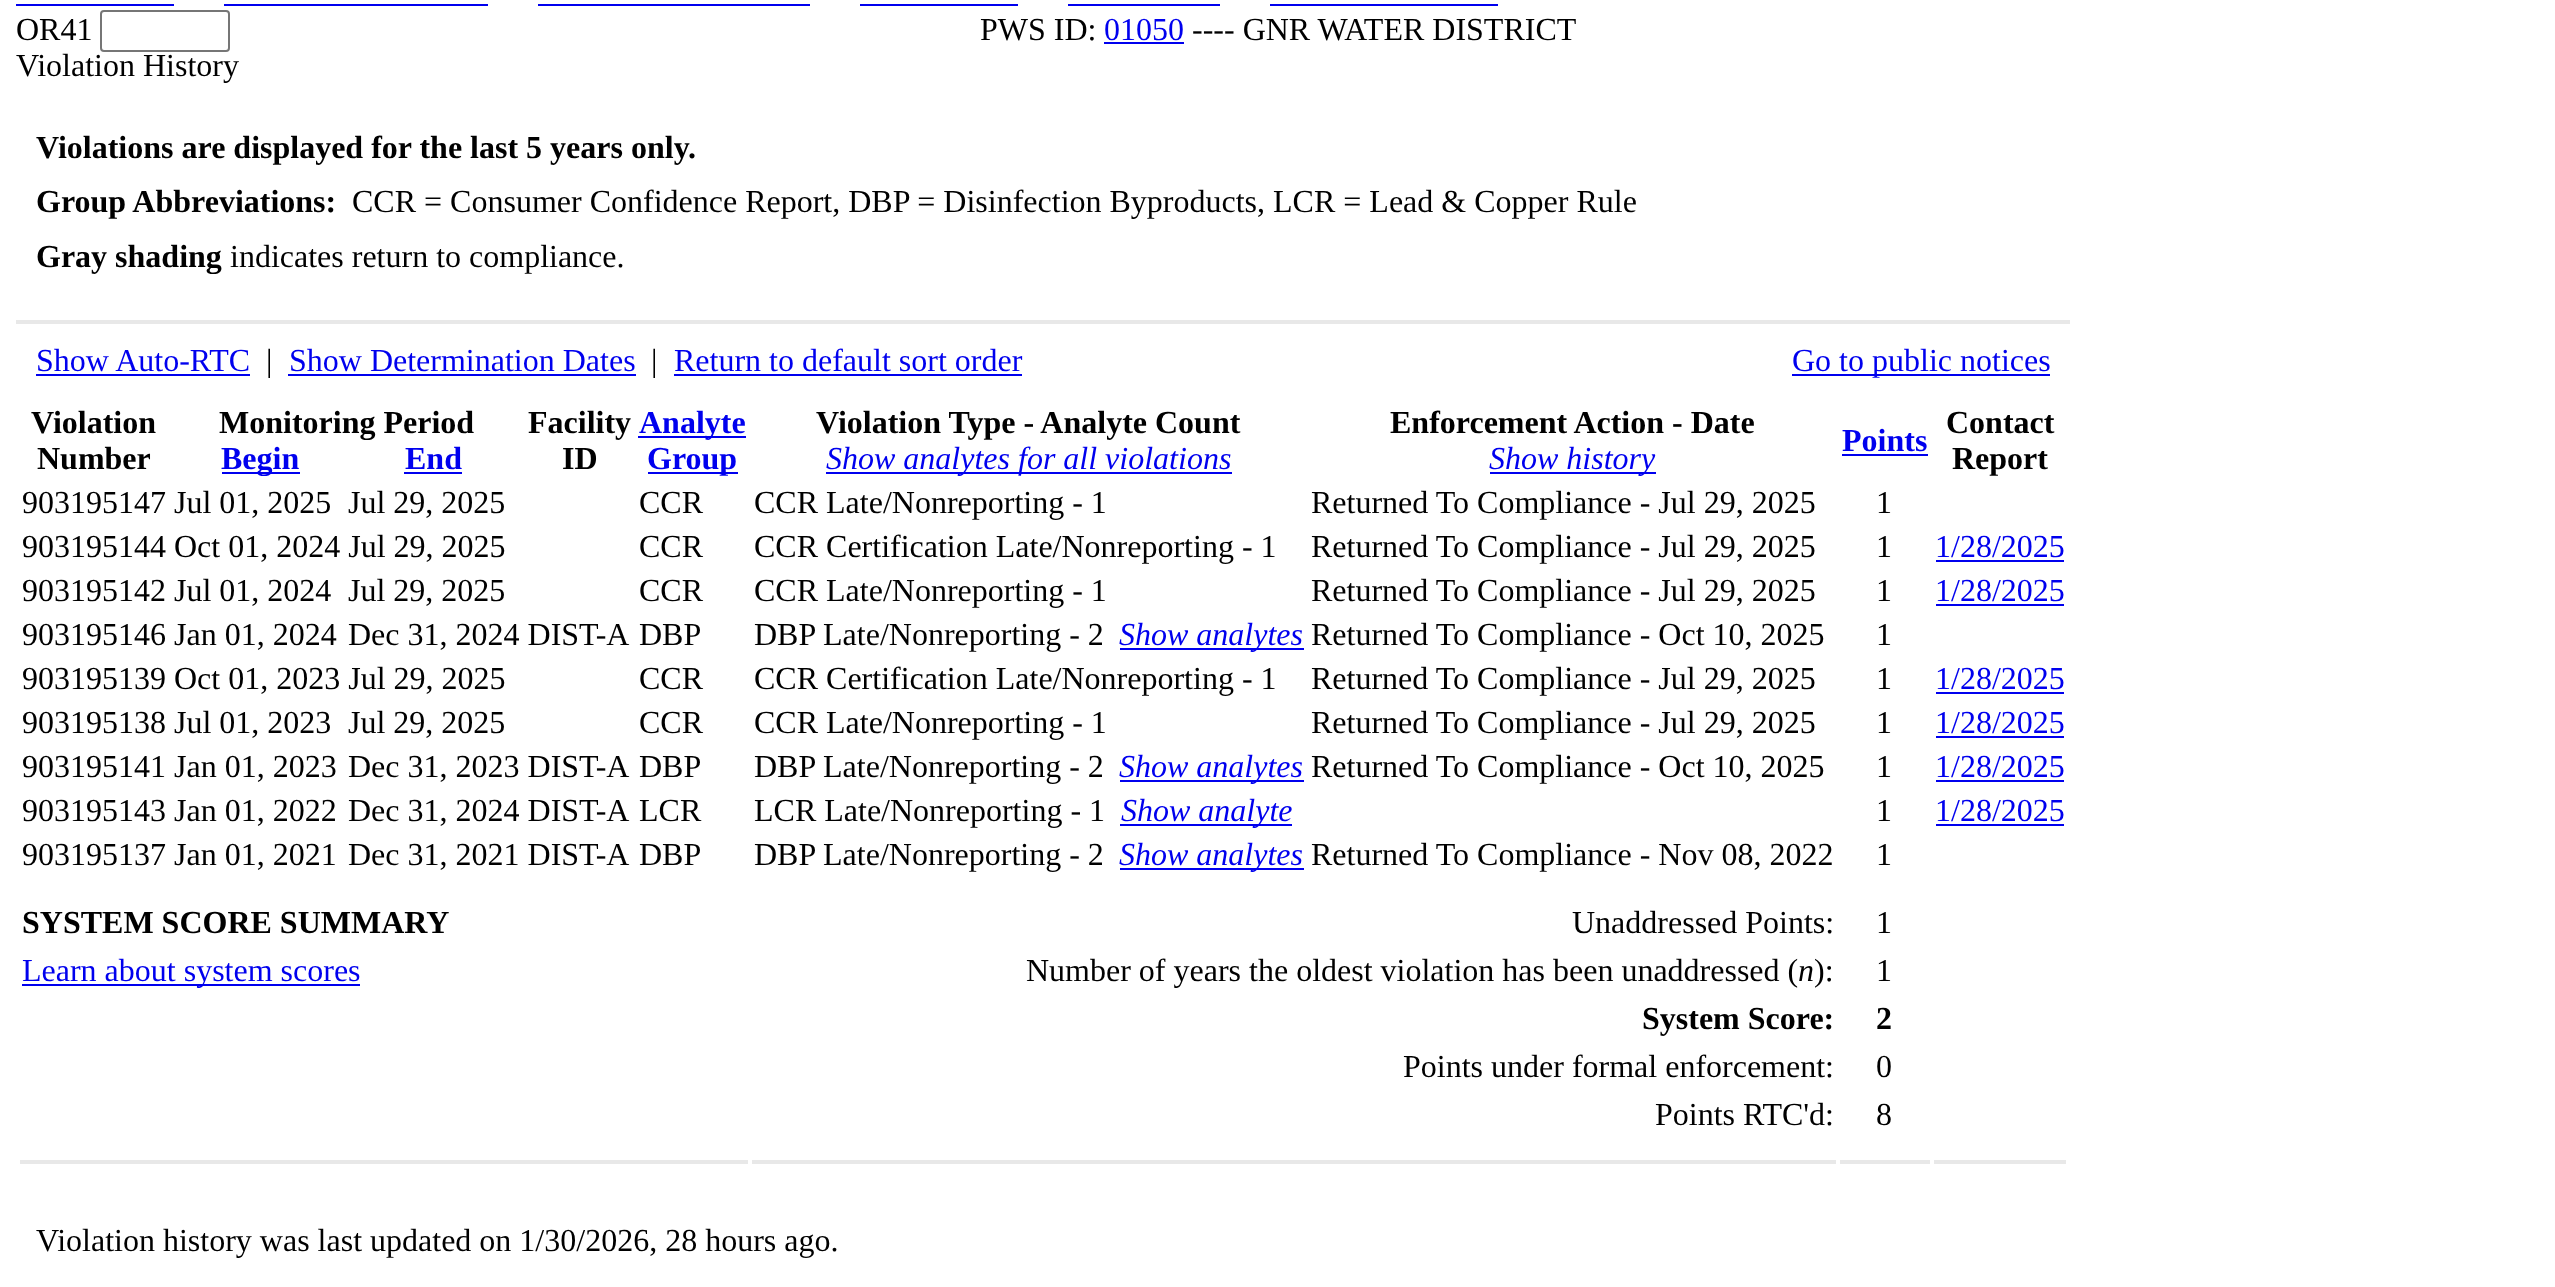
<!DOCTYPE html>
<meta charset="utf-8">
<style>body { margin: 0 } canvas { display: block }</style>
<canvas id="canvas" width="2555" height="1287"></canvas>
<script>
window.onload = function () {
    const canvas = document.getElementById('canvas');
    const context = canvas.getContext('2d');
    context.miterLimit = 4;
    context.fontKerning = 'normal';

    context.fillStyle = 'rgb(255, 255, 255)';
    context.fillRect(0, 0, 2555, 1287);
    context.fillStyle = 'rgb(0, 0, 238)';
    context.fillRect(16, 4, 158, 2);
    context.fillRect(224, 4, 264, 2);
    context.fillRect(538, 4, 272, 2);
    context.fillRect(860, 4, 158, 2);
    context.fillRect(1068, 4, 152, 2);
    context.fillRect(1270, 4, 228, 2);
    context.beginPath();
    context.roundRect(101, 11, 128, 40, 3);
    context.strokeStyle = 'rgb(118, 118, 118)';
    context.lineWidth = 2;
    context.stroke();
    context.fillRect(1104, 42, 80, 2);
    context.fillStyle = 'rgb(232, 232, 232)';
    context.fillRect(16, 320, 2054, 4);
    context.fillStyle = 'rgb(0, 0, 238)';
    context.fillRect(36, 374, 214, 2);
    context.fillRect(288, 374, 348, 2);
    context.fillRect(674, 374, 348, 2);
    context.fillRect(1792, 374, 258, 2);
    context.fillRect(222, 472, 78, 2);
    context.fillRect(404, 472, 58, 2);
    context.fillRect(638, 436, 108, 2);
    context.fillRect(648, 472, 90, 2);
    context.fillRect(826, 472, 406, 2);
    context.fillRect(1490, 472, 166, 2);
    context.fillRect(1842, 454, 86, 2);
    context.fillRect(1936, 560, 128, 2);
    context.fillRect(1936, 604, 128, 2);
    context.fillRect(1120, 648, 184, 2);
    context.fillRect(1936, 692, 128, 2);
    context.fillRect(1936, 736, 128, 2);
    context.fillRect(1120, 780, 184, 2);
    context.fillRect(1936, 780, 128, 2);
    context.fillRect(1120, 824, 172, 2);
    context.fillRect(1936, 824, 128, 2);
    context.fillRect(1120, 868, 184, 2);
    context.fillStyle = 'rgb(232, 232, 232)';
    context.fillRect(20, 1160, 728, 4);
    context.fillStyle = 'rgb(0, 0, 238)';
    context.fillRect(22, 984, 338, 2);
    context.fillStyle = 'rgb(232, 232, 232)';
    context.fillRect(752, 1160, 1084, 4);
    context.fillRect(1840, 1160, 90, 4);
    context.fillRect(1934, 1160, 132, 4);
    context.font = '32px Liberation Serif';
    context.fillStyle = 'rgb(0, 0, 0)';
    context.fillText('OR41', 16, 40);
    context.fillText('PWS ID:', 980, 40);
    context.fillStyle = 'rgb(0, 0, 238)';
    context.fillText('01050', 1104, 40);
    context.fillStyle = 'rgb(0, 0, 0)';
    context.fillText('---- GNR WATER DISTRICT', 1192, 40);
    context.fillText('Violation History', 16, 76);
    context.font = 'bold 32px Liberation Serif';
    context.fillText('Violations are displayed for the last 5 years only.', 36, 158);
    context.fillText('Group Abbreviations:', 36, 212);
    context.font = '32px Liberation Serif';
    context.fillText('CCR = Consumer Confidence Report, DBP = Disinfection Byproducts, LCR = Lead & Copper Rule', 352, 212);
    context.font = 'bold 32px Liberation Serif';
    context.fillText('Gray shading', 36, 267);
    context.font = '32px Liberation Serif';
    context.fillText('indicates return to compliance.', 230, 267);
    context.fillStyle = 'rgb(0, 0, 238)';
    context.fillText('Show Auto-RTC', 36, 371);
    context.fillStyle = 'rgb(0, 0, 0)';
    context.fillText('|', 266, 371);
    context.fillStyle = 'rgb(0, 0, 238)';
    context.fillText('Show Determination Dates', 289, 371);
    context.fillStyle = 'rgb(0, 0, 0)';
    context.fillText('|', 651, 371);
    context.fillStyle = 'rgb(0, 0, 238)';
    context.fillText('Return to default sort order', 674, 371);
    context.fillText('Go to public notices', 1792, 371);
    context.font = 'bold 32px Liberation Serif';
    context.fillStyle = 'rgb(0, 0, 0)';
    context.fillText('Violation', 31, 433);
    context.fillText('Number', 37, 469);
    context.fillText('Monitoring Period', 219, 433);
    context.fillStyle = 'rgb(0, 0, 238)';
    context.fillText('Begin', 221, 469);
    context.fillText('End', 405, 469);
    context.fillStyle = 'rgb(0, 0, 0)';
    context.fillText('Facility', 528, 433);
    context.fillText('ID', 562, 469);
    context.fillStyle = 'rgb(0, 0, 238)';
    context.fillText('Analyte', 639, 433);
    context.fillText('Group', 647, 469);
    context.fillStyle = 'rgb(0, 0, 0)';
    context.fillText('Violation Type - Analyte Count', 816, 433);
    context.font = 'italic 32px Liberation Serif';
    context.fillStyle = 'rgb(0, 0, 238)';
    context.fillText('Show analytes for all violations', 826, 469);
    context.font = 'bold 32px Liberation Serif';
    context.fillStyle = 'rgb(0, 0, 0)';
    context.fillText('Enforcement Action - Date', 1390, 433);
    context.font = 'italic 32px Liberation Serif';
    context.fillStyle = 'rgb(0, 0, 238)';
    context.fillText('Show history', 1489, 469);
    context.font = 'bold 32px Liberation Serif';
    context.fillText('Points', 1842, 451);
    context.fillStyle = 'rgb(0, 0, 0)';
    context.fillText('Contact', 1946, 433);
    context.fillText('Report', 1952, 469);
    context.font = '32px Liberation Serif';
    context.fillText('903195147 Jul 01, 2025', 22, 513);
    context.fillText('Jul 29, 2025', 348, 513);
    context.fillText('CCR', 639, 513);
    context.fillText('CCR Late/Nonreporting - 1', 754, 513);
    context.fillText('Returned To Compliance - Jul 29, 2025', 1311, 513);
    context.fillText('1', 1876, 513);
    context.fillText('903195144 Oct 01, 2024 Jul 29, 2025', 22, 557);
    context.fillText('CCR', 639, 557);
    context.fillText('CCR Certification Late/Nonreporting - 1', 754, 557);
    context.fillText('Returned To Compliance - Jul 29, 2025', 1311, 557);
    context.fillText('1', 1876, 557);
    context.fillStyle = 'rgb(0, 0, 238)';
    context.fillText('1/28/2025', 1935, 557);
    context.fillStyle = 'rgb(0, 0, 0)';
    context.fillText('903195142 Jul 01, 2024', 22, 601);
    context.fillText('Jul 29, 2025', 348, 601);
    context.fillText('CCR', 639, 601);
    context.fillText('CCR Late/Nonreporting - 1', 754, 601);
    context.fillText('Returned To Compliance - Jul 29, 2025', 1311, 601);
    context.fillText('1', 1876, 601);
    context.fillStyle = 'rgb(0, 0, 238)';
    context.fillText('1/28/2025', 1935, 601);
    context.fillStyle = 'rgb(0, 0, 0)';
    context.fillText('903195146 Jan 01, 2024', 22, 645);
    context.fillText('Dec 31, 2024 DIST-A', 348, 645);
    context.fillText('DBP', 639, 645);
    context.fillText('DBP Late/Nonreporting - 2', 754, 645);
    context.font = 'italic 32px Liberation Serif';
    context.fillStyle = 'rgb(0, 0, 238)';
    context.fillText('Show analytes', 1119, 645);
    context.font = '32px Liberation Serif';
    context.fillStyle = 'rgb(0, 0, 0)';
    context.fillText('Returned To Compliance - Oct 10, 2025', 1311, 645);
    context.fillText('1', 1876, 645);
    context.fillText('903195139 Oct 01, 2023 Jul 29, 2025', 22, 689);
    context.fillText('CCR', 639, 689);
    context.fillText('CCR Certification Late/Nonreporting - 1', 754, 689);
    context.fillText('Returned To Compliance - Jul 29, 2025', 1311, 689);
    context.fillText('1', 1876, 689);
    context.fillStyle = 'rgb(0, 0, 238)';
    context.fillText('1/28/2025', 1935, 689);
    context.fillStyle = 'rgb(0, 0, 0)';
    context.fillText('903195138 Jul 01, 2023', 22, 733);
    context.fillText('Jul 29, 2025', 348, 733);
    context.fillText('CCR', 639, 733);
    context.fillText('CCR Late/Nonreporting - 1', 754, 733);
    context.fillText('Returned To Compliance - Jul 29, 2025', 1311, 733);
    context.fillText('1', 1876, 733);
    context.fillStyle = 'rgb(0, 0, 238)';
    context.fillText('1/28/2025', 1935, 733);
    context.fillStyle = 'rgb(0, 0, 0)';
    context.fillText('903195141 Jan 01, 2023', 22, 777);
    context.fillText('Dec 31, 2023 DIST-A', 348, 777);
    context.fillText('DBP', 639, 777);
    context.fillText('DBP Late/Nonreporting - 2', 754, 777);
    context.font = 'italic 32px Liberation Serif';
    context.fillStyle = 'rgb(0, 0, 238)';
    context.fillText('Show analytes', 1119, 777);
    context.font = '32px Liberation Serif';
    context.fillStyle = 'rgb(0, 0, 0)';
    context.fillText('Returned To Compliance - Oct 10, 2025', 1311, 777);
    context.fillText('1', 1876, 777);
    context.fillStyle = 'rgb(0, 0, 238)';
    context.fillText('1/28/2025', 1935, 777);
    context.fillStyle = 'rgb(0, 0, 0)';
    context.fillText('903195143 Jan 01, 2022', 22, 821);
    context.fillText('Dec 31, 2024 DIST-A', 348, 821);
    context.fillText('LCR', 639, 821);
    context.fillText('LCR Late/Nonreporting - 1', 754, 821);
    context.font = 'italic 32px Liberation Serif';
    context.fillStyle = 'rgb(0, 0, 238)';
    context.fillText('Show analyte', 1121, 821);
    context.font = '32px Liberation Serif';
    context.fillStyle = 'rgb(0, 0, 0)';
    context.fillText('1', 1876, 821);
    context.fillStyle = 'rgb(0, 0, 238)';
    context.fillText('1/28/2025', 1935, 821);
    context.fillStyle = 'rgb(0, 0, 0)';
    context.fillText('903195137 Jan 01, 2021', 22, 865);
    context.fillText('Dec 31, 2021 DIST-A', 348, 865);
    context.fillText('DBP', 639, 865);
    context.fillText('DBP Late/Nonreporting - 2', 754, 865);
    context.font = 'italic 32px Liberation Serif';
    context.fillStyle = 'rgb(0, 0, 238)';
    context.fillText('Show analytes', 1119, 865);
    context.font = '32px Liberation Serif';
    context.fillStyle = 'rgb(0, 0, 0)';
    context.fillText('Returned To Compliance - Nov 08, 2022', 1311, 865);
    context.fillText('1', 1876, 865);
    context.font = 'bold 32px Liberation Serif';
    context.fillText('SYSTEM SCORE SUMMARY', 22, 933);
    context.font = '32px Liberation Serif';
    context.fillStyle = 'rgb(0, 0, 238)';
    context.fillText('Learn about system scores', 22, 981);
    context.fillStyle = 'rgb(0, 0, 0)';
    context.fillText('Unaddressed Points:', 1572, 933);
    context.fillText('Number of years the oldest violation has been unaddressed (', 1026, 981);
    context.font = 'italic 32px Liberation Serif';
    context.fillText('n', 1798, 981);
    context.font = '32px Liberation Serif';
    context.fillText('):', 1814, 981);
    context.font = 'bold 32px Liberation Serif';
    context.fillText('System Score:', 1642, 1029);
    context.font = '32px Liberation Serif';
    context.fillText('Points under formal enforcement:', 1403, 1077);
    context.fillText('Points RTC\'d:', 1655, 1125);
    context.fillText('1', 1876, 933);
    context.fillText('1', 1876, 981);
    context.font = 'bold 32px Liberation Serif';
    context.fillText('2', 1876, 1029);
    context.font = '32px Liberation Serif';
    context.fillText('0', 1876, 1077);
    context.fillText('8', 1876, 1125);
    context.fillText('Violation history was last updated on 1/30/2026, 28 hours ago.', 36, 1251);
};
</script>
